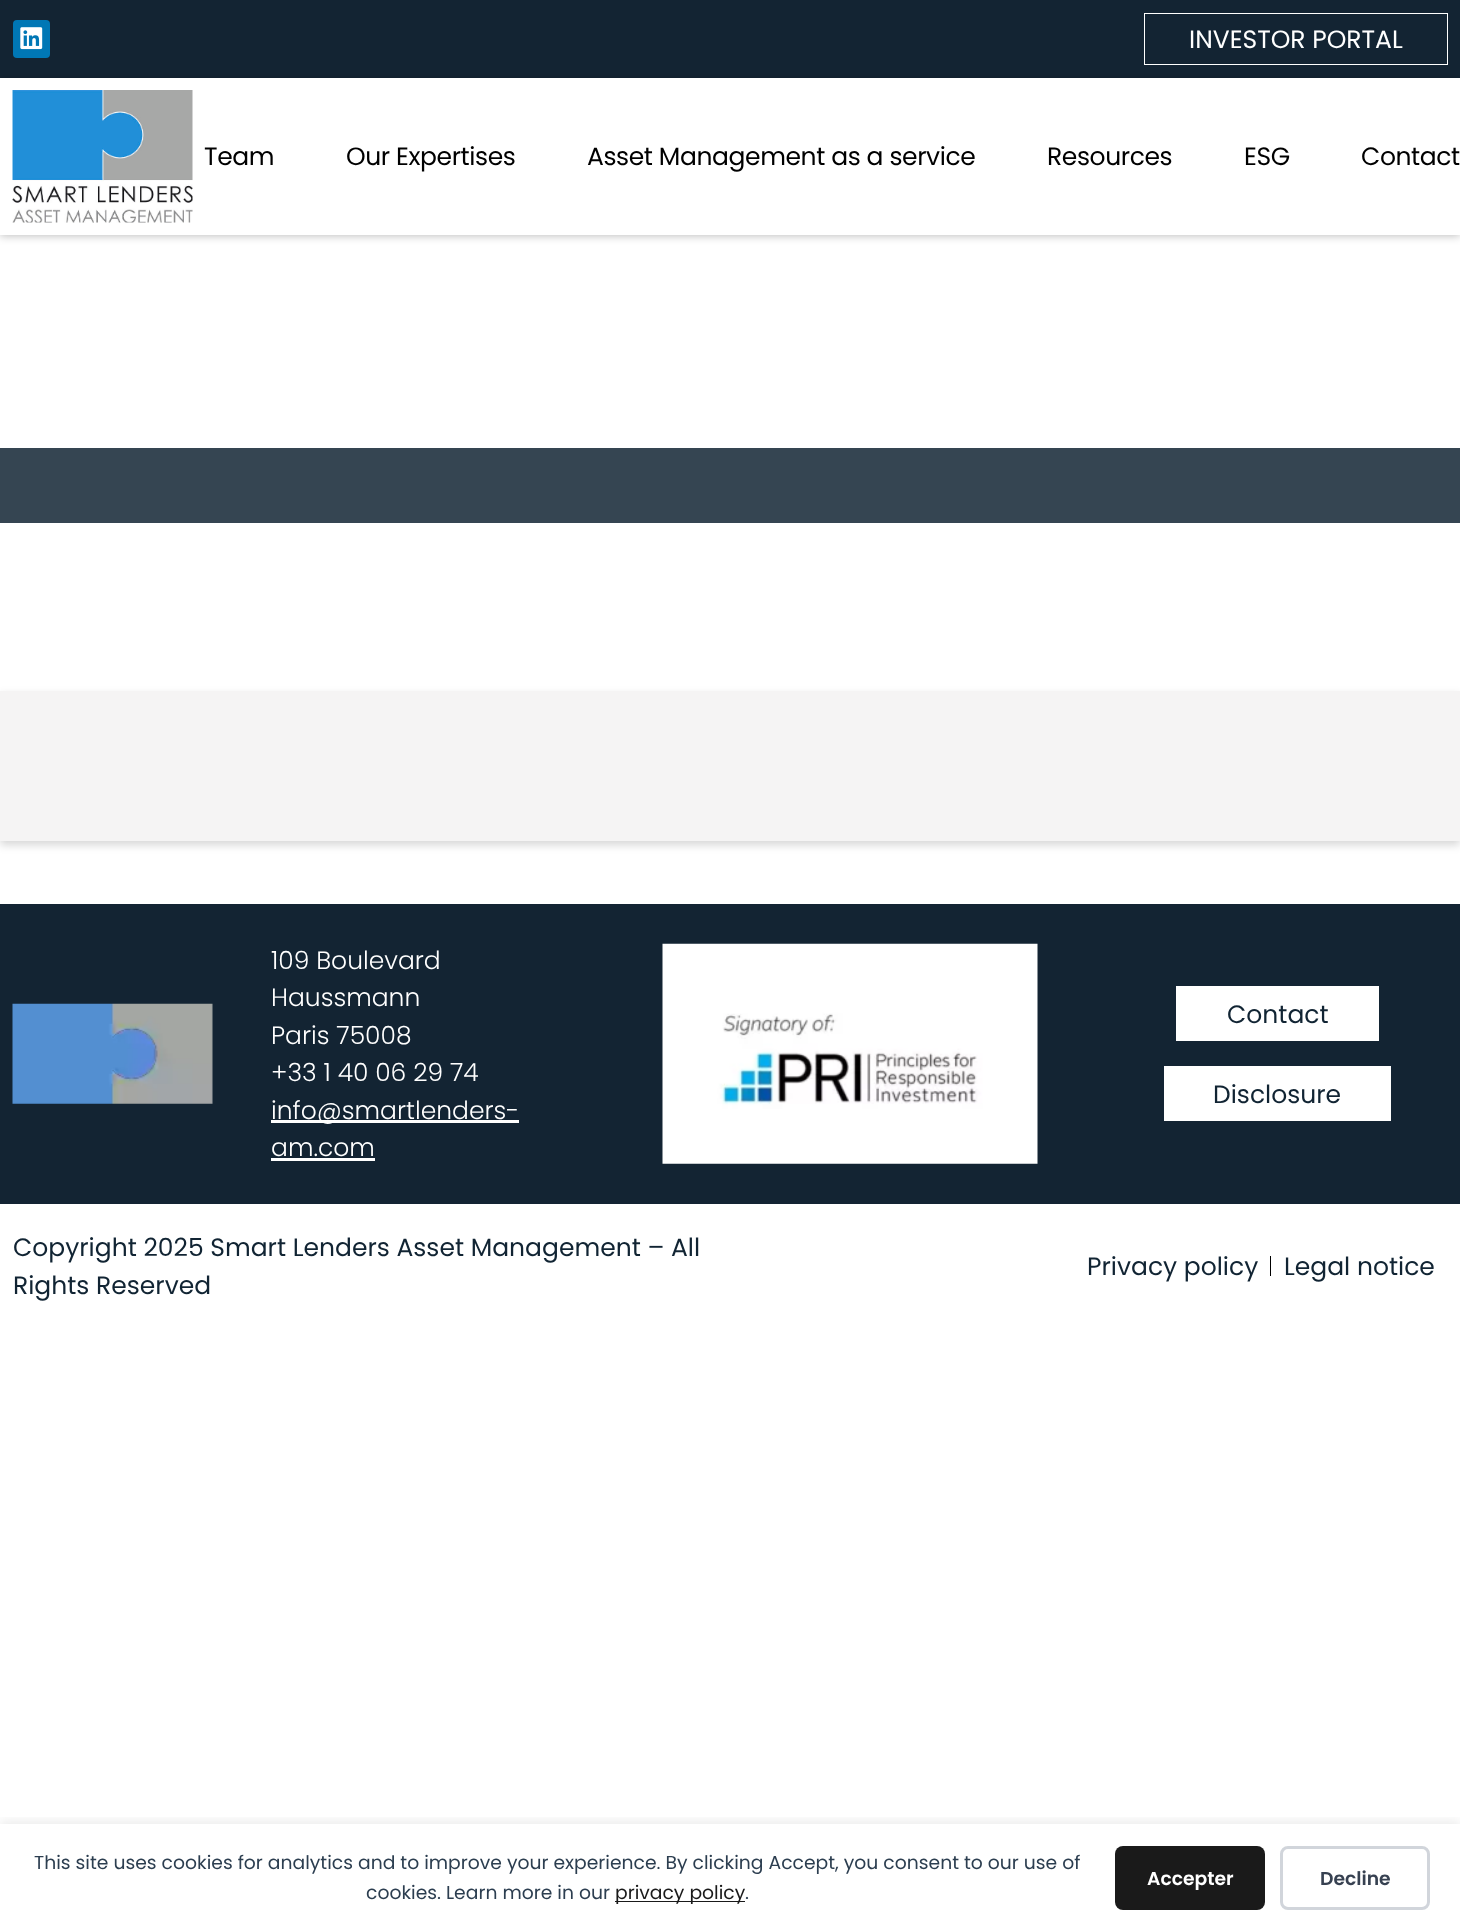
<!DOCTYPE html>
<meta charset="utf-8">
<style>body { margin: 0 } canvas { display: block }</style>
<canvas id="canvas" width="1460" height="1932"></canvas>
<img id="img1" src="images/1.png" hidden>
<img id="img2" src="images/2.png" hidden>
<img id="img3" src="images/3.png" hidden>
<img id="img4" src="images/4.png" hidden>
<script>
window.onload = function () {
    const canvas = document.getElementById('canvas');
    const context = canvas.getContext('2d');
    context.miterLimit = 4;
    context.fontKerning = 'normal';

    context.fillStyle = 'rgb(255, 255, 255)';
    context.fillRect(0, 0, 1460, 1932);
    context.fillStyle = 'rgb(19, 36, 51)';
    context.fillRect(0, 0, 1460, 78);
    context.fillStyle = 'rgb(0, 119, 181)';
    context.beginPath();
    context.roundRect(13, 20, 37, 38, 4);
    context.fill();
    context.drawImage(document.getElementById('img1'), 20, 27, 23, 23);
    context.strokeStyle = 'rgb(255, 255, 255)';
    context.strokeRect(1144.5, 13.5, 303, 51);
    context.save();
    context.beginPath();
    context.moveTo(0, 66);
    context.lineTo(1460, 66);
    context.lineTo(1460, 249);
    context.lineTo(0, 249);
    context.closePath();
    context.moveTo(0, 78);
    context.lineTo(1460, 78);
    context.lineTo(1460, 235);
    context.lineTo(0, 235);
    context.closePath();
    context.clip('evenodd');
    context.fillStyle = 'rgba(0, 0, 0, 0.25)';
    context.filter = 'blur(4px)';
    context.beginPath();
    context.rect(0, 79, 1460, 157);
    context.fill();
    context.filter = 'none';
    context.restore();
    context.drawImage(document.getElementById('img2'), 12, 90, 181, 133);
    context.fillStyle = 'rgb(53, 69, 82)';
    context.fillRect(0, 448, 1460, 75);
    context.fillStyle = 'rgba(0, 0, 0, 0.16)';
    context.filter = 'blur(4px)';
    context.beginPath();
    context.rect(0, 695, 1460, 150);
    context.fill();
    context.filter = 'none';
    context.fillStyle = 'rgb(245, 244, 244)';
    context.fillRect(0, 691, 1460, 150);
    context.fillStyle = 'rgb(19, 36, 51)';
    context.fillRect(0, 904, 1460, 300);
    context.drawImage(document.getElementById('img3'), 12, 1003, 201, 101);
    context.fillStyle = 'rgb(255, 255, 255)';
    context.fillRect(271, 1120, 248, 3);
    context.fillRect(271, 1158, 104, 3);
    context.drawImage(document.getElementById('img4'), 662, 943, 376, 221);
    context.fillRect(1176, 986, 203, 55);
    context.fillRect(1164, 1066, 227, 55);
    context.fillStyle = 'rgb(0, 0, 0)';
    context.fillRect(1270, 1256, 1, 20);
    context.save();
    context.beginPath();
    context.rect(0, 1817, 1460, 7);
    context.clip();
    context.fillStyle = 'rgba(0, 0, 0, 0.08)';
    context.filter = 'blur(6px)';
    context.beginPath();
    context.rect(0, 1821, 1460, 109);
    context.fill();
    context.filter = 'none';
    context.restore();
    context.fillStyle = 'rgb(26, 26, 26)';
    context.fillRect(615, 1901, 130, 1);
    context.beginPath();
    context.roundRect(1115, 1846, 150, 64, 8);
    context.fill();
    context.beginPath();
    context.roundRect(1281.5, 1847.5, 147, 61, 6.5);
    context.strokeStyle = 'rgb(209, 213, 219)';
    context.lineWidth = 3;
    context.stroke();
    context.font = '25px Poppins';
    context.fillStyle = 'rgb(255, 255, 255)';
    context.fillText('INVESTOR PORTAL', 1189, 48);
    context.letterSpacing = '-0.4px';
    context.fillStyle = 'rgb(0, 0, 0)';
    context.fillText('Team', 204, 165);
    context.fillText('Our Expertises', 346, 165);
    context.fillText('Asset Management as a service', 587, 165);
    context.fillText('Resources', 1047, 165);
    context.fillText('ESG', 1244, 165);
    context.fillText('Contact', 1361, 165);
    context.letterSpacing = '0px';
    context.font = '300 25px Poppins';
    context.fillStyle = 'rgb(255, 255, 255)';
    context.fillText('109 Boulevard', 271, 969);
    context.fillText('Haussmann', 271, 1006);
    context.fillText('Paris 75008', 271, 1044);
    context.fillText('+33 1 40 06 29 74', 271, 1081);
    context.fillText('info@smartlenders-', 271, 1119);
    context.fillText('am.com', 271, 1156);
    context.font = '25px Poppins';
    context.fillStyle = 'rgb(17, 36, 51)';
    context.fillText('Contact', 1227, 1023);
    context.fillText('Disclosure', 1213, 1103);
    context.fillText('Copyright 2025 Smart Lenders Asset Management – All', 13, 1256);
    context.fillText('Rights Reserved', 13, 1294);
    context.fillText('Privacy policy', 1087, 1275);
    context.fillText('Legal notice', 1284, 1275);
    context.font = '18.75px Poppins';
    context.fillStyle = 'rgb(44, 62, 80)';
    context.fillText('This site uses cookies for analytics and to improve your experience. By clicking Accept, you consent to our use of', 34, 1869);
    context.fillText('cookies. Learn more in our', 366, 1899);
    context.fillStyle = 'rgb(26, 26, 26)';
    context.fillText('privacy policy', 615, 1899);
    context.fillStyle = 'rgb(44, 62, 80)';
    context.fillText('.', 745, 1899);
    context.font = '600 18.75px Poppins';
    context.fillStyle = 'rgb(255, 255, 255)';
    context.fillText('Accepter', 1147, 1885);
    context.fillStyle = 'rgb(55, 65, 81)';
    context.fillText('Decline', 1320, 1885);
};
</script>
